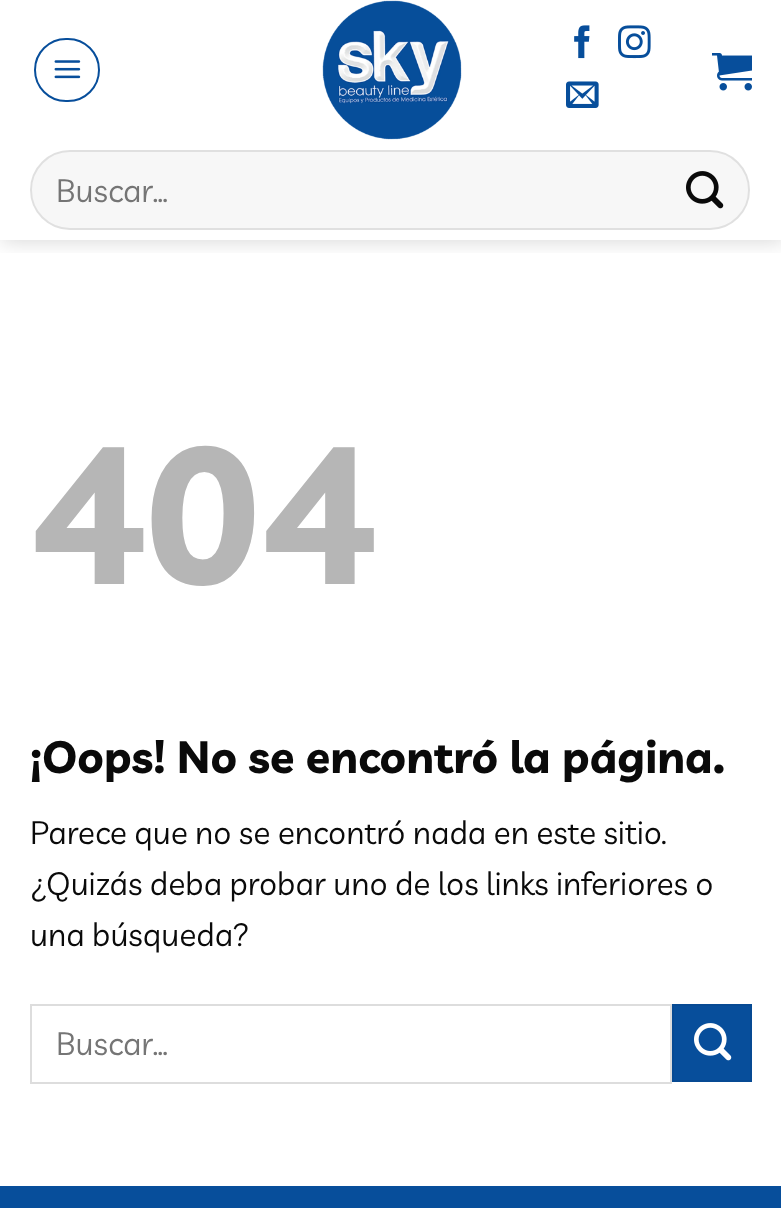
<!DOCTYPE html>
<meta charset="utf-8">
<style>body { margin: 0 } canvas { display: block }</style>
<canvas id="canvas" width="781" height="1208"></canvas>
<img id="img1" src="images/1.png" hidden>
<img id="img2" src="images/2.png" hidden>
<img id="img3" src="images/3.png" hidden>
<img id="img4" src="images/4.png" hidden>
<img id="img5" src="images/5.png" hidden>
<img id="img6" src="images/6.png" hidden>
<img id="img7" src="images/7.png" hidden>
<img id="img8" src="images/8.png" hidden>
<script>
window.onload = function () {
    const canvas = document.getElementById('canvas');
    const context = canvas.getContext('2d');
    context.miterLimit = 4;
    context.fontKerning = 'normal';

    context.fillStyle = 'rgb(255, 255, 255)';
    context.fillRect(0, 0, 781, 1208);
    context.save();
    context.beginPath();
    context.rect(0, 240, 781, 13);
    context.clip();
    context.fillStyle = 'rgba(0, 0, 0, 0.15)';
    context.filter = 'blur(10px)';
    context.beginPath();
    context.rect(2, 2, 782, 240);
    context.fill();
    context.filter = 'none';
    context.restore();
    context.beginPath();
    context.roundRect(35, 39, 64, 62, 31);
    context.strokeStyle = 'rgb(7, 78, 155)';
    context.lineWidth = 2;
    context.stroke();
    context.drawImage(document.getElementById('img1'), 54, 60, 27, 19);
    context.drawImage(document.getElementById('img2'), 322, 0, 140, 140);
    context.drawImage(document.getElementById('img3'), 574, 25, 16, 34);
    context.drawImage(document.getElementById('img4'), 618, 25, 33, 34);
    context.drawImage(document.getElementById('img5'), 566, 81, 33, 27);
    context.drawImage(document.getElementById('img6'), 712, 53, 40, 38);
    context.fillStyle = 'rgb(247, 247, 247)';
    context.beginPath();
    context.roundRect(30, 150, 720, 80, 40);
    context.fill();
    context.beginPath();
    context.roundRect(31, 151, 718, 78, 39);
    context.strokeStyle = 'rgba(0, 0, 0, 0.09)';
    context.stroke();
    context.drawImage(document.getElementById('img7'), 686, 171, 38, 38);
    context.strokeStyle = 'rgb(221, 221, 221)';
    context.strokeRect(31, 1005, 640, 78);
    context.fillStyle = 'rgb(7, 78, 155)';
    context.beginPath();
    context.rect(673, 1005, 78, 76);
    context.fill();
    context.strokeStyle = 'rgb(7, 74, 147)';
    context.stroke();
    context.drawImage(document.getElementById('img8'), 694, 1023, 38, 38);
    context.fillRect(0, 1186, 781, 22);
    context.font = '32px Livvic';
    context.fillStyle = 'rgb(117, 117, 117)';
    context.fillText('Buscar…', 56, 202);
    context.font = 'bold 192px Livvic';
    context.fillStyle = 'rgb(182, 182, 182)';
    context.fillText('404', 30, 584);
    context.font = 'bold 44.75px Livvic';
    context.fillStyle = 'rgb(10, 10, 10)';
    context.fillText('¡Oops! No se encontró la página.', 30, 773);
    context.font = '32px Livvic';
    context.fillText('Parece que no se encontró nada en este sitio.', 30, 844);
    context.fillText('¿Quizás deba probar uno de los links inferiores o', 30, 895);
    context.fillText('una búsqueda?', 30, 946);
    context.fillStyle = 'rgb(117, 117, 117)';
    context.fillText('Buscar…', 56, 1055);
};
</script>
